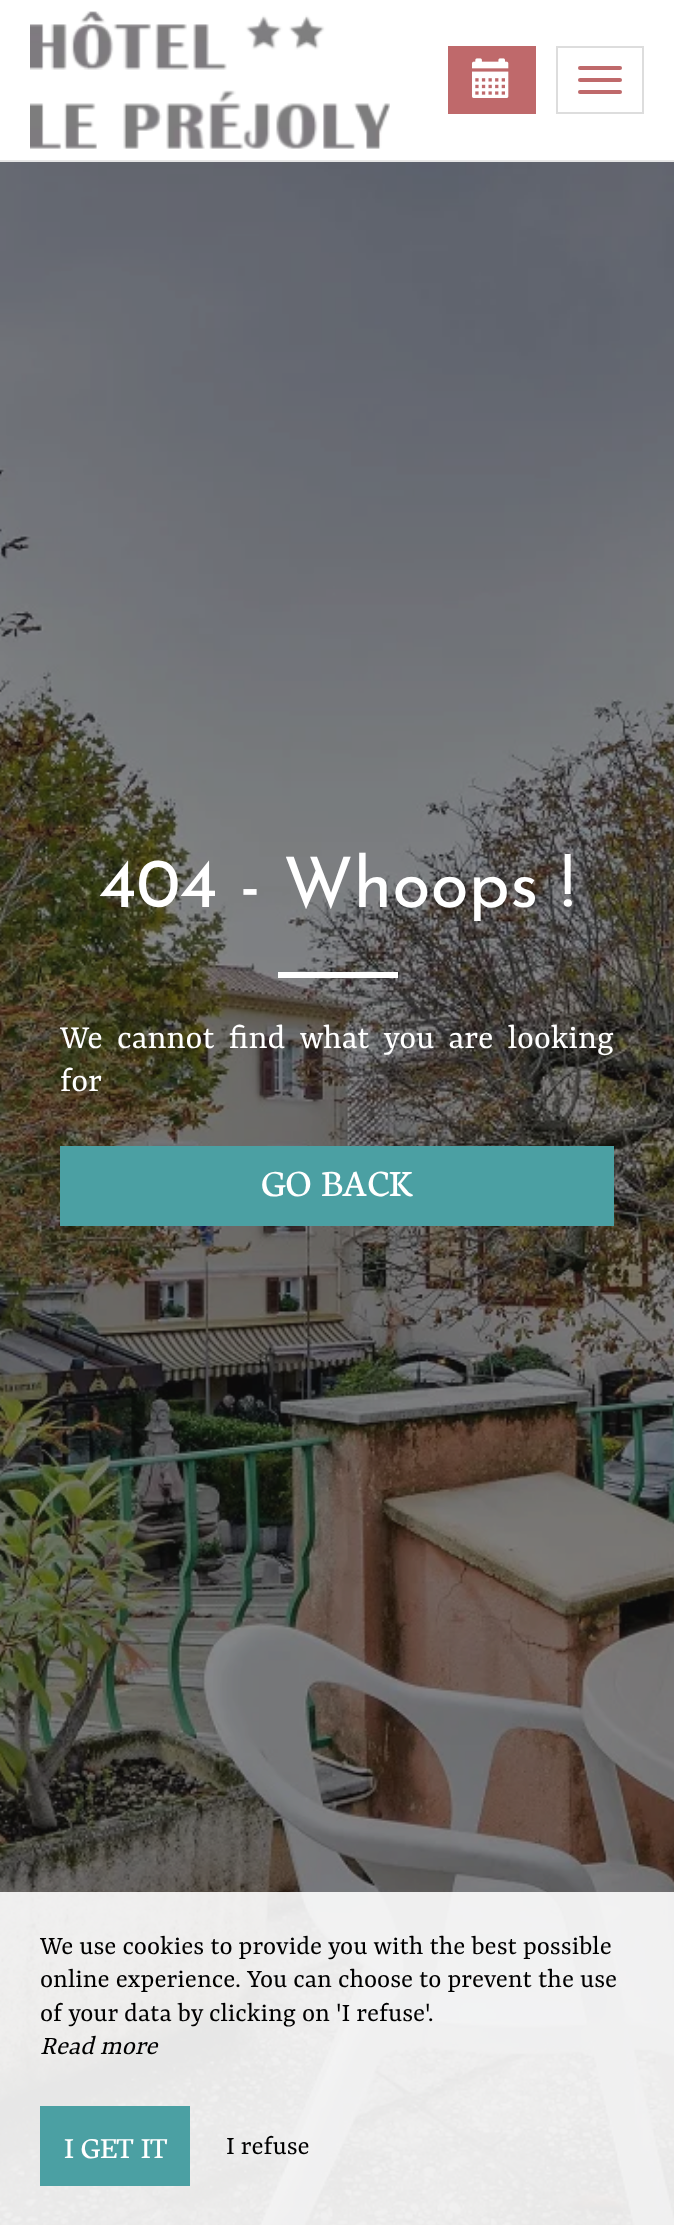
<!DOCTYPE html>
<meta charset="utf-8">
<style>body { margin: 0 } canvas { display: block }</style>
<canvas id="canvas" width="674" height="2225"></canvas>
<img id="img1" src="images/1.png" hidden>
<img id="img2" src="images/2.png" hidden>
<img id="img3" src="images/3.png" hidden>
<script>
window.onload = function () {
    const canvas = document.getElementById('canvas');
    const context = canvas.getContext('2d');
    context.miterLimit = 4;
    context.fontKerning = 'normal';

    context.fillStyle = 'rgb(255, 255, 255)';
    context.fillRect(0, 0, 674, 2225);
    context.fillStyle = 'rgb(230, 230, 230)';
    context.fillRect(0, 160, 674, 2);
    context.drawImage(document.getElementById('img1'), 30, 11, 360, 138);
    context.fillStyle = 'rgb(191, 105, 107)';
    context.fillRect(448, 46, 88, 68);
    context.drawImage(document.getElementById('img2'), 472, 58, 37, 40);
    context.strokeStyle = 'rgb(221, 221, 221)';
    context.lineWidth = 2;
    context.strokeRect(557, 47, 86, 66);
    context.beginPath();
    context.roundRect(578, 66, 44, 4, 2);
    context.fill();
    context.beginPath();
    context.roundRect(578, 78, 44, 4, 2);
    context.fill();
    context.beginPath();
    context.roundRect(578, 90, 44, 4, 2);
    context.fill();
    context.drawImage(document.getElementById('img3'), 0, 162, 674, 2063);
    context.fillStyle = 'rgb(255, 255, 255)';
    context.fillRect(278, 972, 120, 6);
    context.fillStyle = 'rgb(75, 160, 163)';
    context.fillRect(60, 1146, 554, 80);
    context.fillStyle = 'rgba(255, 255, 255, 0.9)';
    context.fillRect(0, 1892, 674, 333);
    context.fillStyle = 'rgb(75, 160, 163)';
    context.fillRect(40, 2106, 150, 80);
    context.font = '70px Josefin Sans';
    context.fillStyle = 'rgb(255, 255, 255)';
    context.fillText('404 - Whoops !', 99, 907);
    context.wordSpacing = '6.5px';
    context.font = '36px Yrsa';
    context.fillText('We cannot find what you are looking', 60, 1048);
    context.wordSpacing = '0px';
    context.fillText('for', 60, 1091);
    context.wordSpacing = '4px';
    context.font = '39.5px Neuton';
    context.fillText('GO BACK', 261, 1196);
    context.wordSpacing = '0px';
    context.font = '28px Yrsa';
    context.fillStyle = 'rgb(0, 0, 0)';
    context.fillText('We use cookies to provide you with the best possible', 40, 1954);
    context.fillText('online experience. You can choose to prevent the use', 40, 1987);
    context.fillText('of your data by clicking on \'I refuse\'.', 40, 2021);
    context.font = 'italic 28px Yrsa';
    context.fillText('Read more', 40, 2054);
    context.wordSpacing = '3px';
    context.font = '31px Neuton';
    context.fillStyle = 'rgb(255, 255, 255)';
    context.fillText('I GET IT', 64, 2158);
    context.wordSpacing = '0px';
    context.font = '28px Yrsa';
    context.fillStyle = 'rgb(0, 0, 0)';
    context.fillText('I refuse', 226, 2154);
};
</script>
